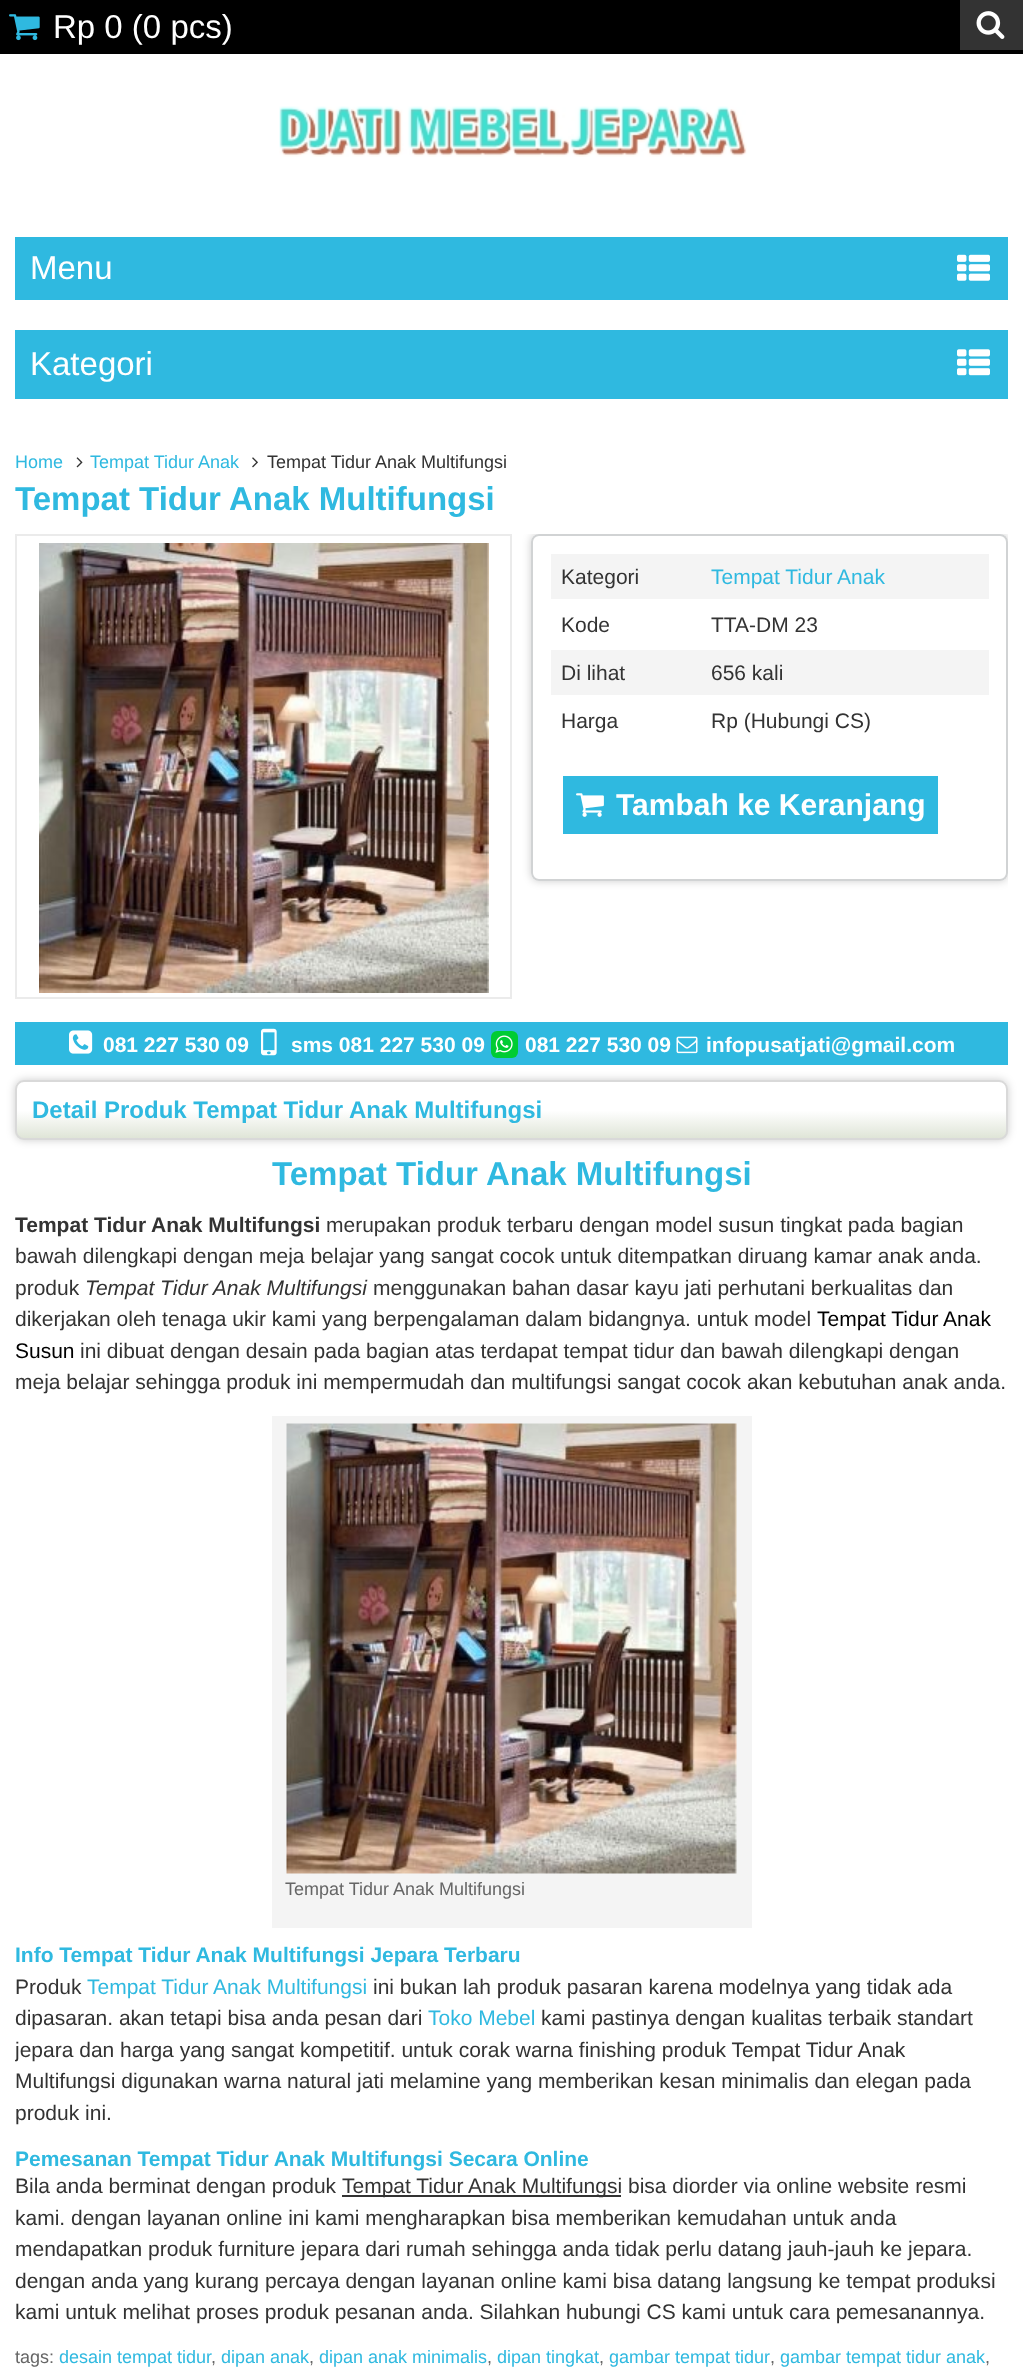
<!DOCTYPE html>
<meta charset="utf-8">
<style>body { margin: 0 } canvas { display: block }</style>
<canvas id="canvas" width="1023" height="2374"></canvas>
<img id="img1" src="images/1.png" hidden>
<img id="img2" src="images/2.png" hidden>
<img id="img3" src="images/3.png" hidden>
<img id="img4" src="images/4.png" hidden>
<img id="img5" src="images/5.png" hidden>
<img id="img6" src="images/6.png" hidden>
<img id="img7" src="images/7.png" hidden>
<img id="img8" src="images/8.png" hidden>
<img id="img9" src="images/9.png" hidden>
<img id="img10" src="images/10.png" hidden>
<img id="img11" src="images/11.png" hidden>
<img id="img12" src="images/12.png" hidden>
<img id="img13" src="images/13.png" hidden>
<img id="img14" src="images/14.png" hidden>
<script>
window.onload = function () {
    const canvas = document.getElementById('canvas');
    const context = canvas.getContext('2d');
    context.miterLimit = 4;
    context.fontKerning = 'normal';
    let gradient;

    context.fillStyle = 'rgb(255, 255, 255)';
    context.fillRect(0, 0, 1023, 2374);
    context.fillStyle = 'rgb(0, 0, 0)';
    context.fillRect(0, 0, 1023, 54);
    context.drawImage(document.getElementById('img1'), 9, 14, 31, 27);
    context.fillStyle = 'rgb(51, 51, 51)';
    context.fillRect(960, 0, 63, 50);
    context.drawImage(document.getElementById('img2'), 976, 11, 29, 28);
    context.drawImage(document.getElementById('img3'), 279, 106, 468, 51);
    context.fillStyle = 'rgb(47, 185, 224)';
    context.fillRect(15, 237, 993, 63);
    context.drawImage(document.getElementById('img4'), 957, 254, 33, 27);
    context.fillRect(15, 330, 993, 69);
    context.drawImage(document.getElementById('img5'), 957, 349, 33, 27);
    context.drawImage(document.getElementById('img6'), 76, 457, 7, 11);
    context.drawImage(document.getElementById('img7'), 252, 457, 6, 11);
    context.strokeStyle = 'rgb(235, 235, 235)';
    context.lineWidth = 2;
    context.strokeRect(16, 535, 495, 463);
    context.drawImage(document.getElementById('img8'), 39, 543, 450, 450);
    context.save();
    context.beginPath();
    context.rect(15, 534, 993, 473);
    context.clip();
    context.beginPath();
    context.moveTo(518, 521);
    context.lineTo(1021, 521);
    context.lineTo(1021, 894);
    context.lineTo(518, 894);
    context.closePath();
    context.moveTo(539, 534);
    context.lineTo(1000, 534);
    context.bezierCurveTo(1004.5, 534, 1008, 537.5, 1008, 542);
    context.lineTo(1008, 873);
    context.bezierCurveTo(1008, 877.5, 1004.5, 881, 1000, 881);
    context.lineTo(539, 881);
    context.bezierCurveTo(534.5, 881, 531, 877.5, 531, 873);
    context.lineTo(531, 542);
    context.bezierCurveTo(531, 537.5, 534.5, 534, 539, 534);
    context.closePath();
    context.clip('evenodd');
    context.fillStyle = 'rgba(0, 0, 0, 0.2)';
    context.filter = 'blur(4px)';
    context.beginPath();
    context.roundRect(531, 534, 477, 347, 8);
    context.fill();
    context.filter = 'none';
    context.restore();
    context.beginPath();
    context.roundRect(532, 535, 475, 345, 7);
    context.strokeStyle = 'rgb(209, 211, 212)';
    context.stroke();
    context.fillStyle = 'rgb(244, 244, 244)';
    context.fillRect(551, 554, 438, 45);
    context.fillRect(551, 650, 438, 45);
    context.fillStyle = 'rgb(47, 185, 224)';
    context.fillRect(563, 776, 375, 58);
    context.drawImage(document.getElementById('img9'), 576, 793, 28, 24);
    context.fillRect(15, 1022, 993, 43);
    context.drawImage(document.getElementById('img10'), 69, 1030, 24, 24);
    context.drawImage(document.getElementById('img11'), 261, 1028, 16, 28);
    context.fillStyle = 'rgb(0, 204, 51)';
    context.beginPath();
    context.roundRect(491, 1031, 27, 27, 6);
    context.fill();
    context.drawImage(document.getElementById('img12'), 495, 1035, 18, 18);
    context.drawImage(document.getElementById('img13'), 676, 1036, 22, 18);
    context.fillStyle = 'rgba(0, 0, 0, 0.2)';
    context.filter = 'blur(4px)';
    context.beginPath();
    context.roundRect(15, 1080, 993, 60, 9);
    context.fill();
    context.filter = 'none';
    context.save();
    context.beginPath();
    context.roundRect(15, 1080, 993, 60, 9);
    context.clip();
    gradient = context.createLinearGradient(512, 1082, 512, 1139);
    gradient.addColorStop(0, 'rgb(255, 255, 255)');
    gradient.addColorStop(0.5, 'rgb(255, 255, 255)');
    gradient.addColorStop(1, 'rgb(222, 228, 214)');
    context.fillStyle = gradient;
    context.fillRect(15, 1082, 993, 57);
    context.restore();
    context.beginPath();
    context.roundRect(16, 1081, 991, 58, 8);
    context.strokeStyle = 'rgb(217, 217, 217)';
    context.stroke();
    context.fillStyle = 'rgb(244, 244, 244)';
    context.fillRect(272, 1416, 480, 512);
    context.drawImage(document.getElementById('img14'), 286, 1423, 451, 451);
    context.fillStyle = 'rgb(51, 51, 51)';
    context.fillRect(342, 2195, 279, 2);
    context.font = '33px Liberation Sans';
    context.fillStyle = 'rgb(255, 255, 255)';
    context.fillText('Rp 0 (0 pcs)', 53, 38);
    context.fillText('Menu', 30, 279);
    context.fillText('Kategori', 30, 375);
    context.font = '18px Liberation Sans';
    context.fillStyle = 'rgb(47, 185, 224)';
    context.fillText('Home', 15, 468);
    context.fillText('Tempat Tidur Anak', 90, 468);
    context.fillStyle = 'rgb(51, 51, 51)';
    context.fillText('Tempat Tidur Anak Multifungsi', 267, 468);
    context.font = 'bold 33px Liberation Sans';
    context.fillStyle = 'rgb(47, 185, 224)';
    context.fillText('Tempat Tidur Anak Multifungsi', 15, 510);
    context.font = '21px Liberation Sans';
    context.fillStyle = 'rgb(51, 51, 51)';
    context.fillText('Kategori', 561, 584);
    context.fillStyle = 'rgb(47, 185, 224)';
    context.fillText('Tempat Tidur Anak', 711, 584);
    context.fillStyle = 'rgb(51, 51, 51)';
    context.fillText('Kode', 561, 632);
    context.fillText('TTA-DM 23', 711, 632);
    context.fillText('Di lihat', 561, 680);
    context.fillText('656 kali', 711, 680);
    context.fillText('Harga', 561, 728);
    context.fillText('Rp (Hubungi CS)', 711, 728);
    context.font = 'bold 30px Liberation Sans';
    context.fillStyle = 'rgb(255, 255, 255)';
    context.fillText('Tambah ke Keranjang', 616, 815);
    context.font = 'bold 21px Liberation Sans';
    context.fillText('081 227 530 09', 103, 1052);
    context.fillText('sms 081 227 530 09', 291, 1052);
    context.fillText('081 227 530 09', 525, 1052);
    context.fillText('infopusatjati@gmail.com', 706, 1052);
    context.font = 'bold 24px Liberation Sans';
    context.fillStyle = 'rgb(47, 185, 224)';
    context.fillText('Detail Produk Tempat Tidur Anak Multifungsi', 32, 1118);
    context.font = 'bold 33px Liberation Sans';
    context.fillText('Tempat Tidur Anak Multifungsi', 272, 1185);
    context.font = 'bold 21px Liberation Sans';
    context.fillStyle = 'rgb(51, 51, 51)';
    context.fillText('Tempat Tidur Anak Multifungsi', 15, 1232);
    context.font = '21px Liberation Sans';
    context.fillText('merupakan produk terbaru dengan model susun tingkat pada bagian', 326, 1232);
    context.fillText('bawah dilengkapi dengan meja belajar yang sangat cocok untuk ditempatkan diruang kamar anak anda.', 15, 1263);
    context.fillText('produk', 15, 1295);
    context.font = 'italic 21px Liberation Sans';
    context.fillText('Tempat Tidur Anak Multifungsi', 85, 1295);
    context.font = '21px Liberation Sans';
    context.fillText('menggunakan bahan dasar kayu jati perhutani berkualitas dan', 373, 1295);
    context.fillText('dikerjakan oleh tenaga ukir kami yang berpengalaman dalam bidangnya. untuk model', 15, 1326);
    context.fillStyle = 'rgb(0, 0, 0)';
    context.fillText('Tempat Tidur Anak', 817, 1326);
    context.fillText('Susun', 15, 1358);
    context.fillStyle = 'rgb(51, 51, 51)';
    context.fillText('ini dibuat dengan desain pada bagian atas terdapat tempat tidur dan bawah dilengkapi dengan', 80, 1358);
    context.fillText('meja belajar sehingga produk ini mempermudah dan multifungsi sangat cocok akan kebutuhan anak anda.', 15, 1389);
    context.font = '18px Liberation Sans';
    context.fillStyle = 'rgb(102, 102, 102)';
    context.fillText('Tempat Tidur Anak Multifungsi', 285, 1895);
    context.font = 'bold 21px Liberation Sans';
    context.fillStyle = 'rgb(47, 185, 224)';
    context.fillText('Info Tempat Tidur Anak Multifungsi Jepara Terbaru', 15, 1962);
    context.font = '21px Liberation Sans';
    context.fillStyle = 'rgb(51, 51, 51)';
    context.fillText('Produk', 15, 1994);
    context.fillStyle = 'rgb(47, 185, 224)';
    context.fillText('Tempat Tidur Anak Multifungsi', 87, 1994);
    context.fillStyle = 'rgb(51, 51, 51)';
    context.fillText('ini bukan lah produk pasaran karena modelnya yang tidak ada', 373, 1994);
    context.fillText('dipasaran. akan tetapi bisa anda pesan dari', 15, 2025);
    context.fillStyle = 'rgb(47, 185, 224)';
    context.fillText('Toko Mebel', 428, 2025);
    context.fillStyle = 'rgb(51, 51, 51)';
    context.fillText('kami pastinya dengan kualitas terbaik standart', 541, 2025);
    context.save();
    context.beginPath();
    context.rect(15, 1155, 993, 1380);
    context.clip();
    context.fillText('jepara dan harga yang sangat kompetitif. untuk corak warna finishing produk Tempat Tidur Anak', 15, 2057);
    context.restore();
    context.fillText('Multifungsi digunakan warna natural jati melamine yang memberikan kesan minimalis dan elegan pada', 15, 2088);
    context.fillText('produk ini.', 15, 2120);
    context.font = 'bold 21px Liberation Sans';
    context.fillStyle = 'rgb(47, 185, 224)';
    context.fillText('Pemesanan Tempat Tidur Anak Multifungsi Secara Online', 15, 2166);
    context.font = '21px Liberation Sans';
    context.fillStyle = 'rgb(51, 51, 51)';
    context.fillText('Bila anda berminat dengan produk', 15, 2193);
    context.fillText('Tempat Tidur Anak Multifungsi bisa diorder via online website resmi', 342, 2193);
    context.fillText('kami. dengan layanan online ini kami mengharapkan bisa memberikan kemudahan untuk anda', 15, 2225);
    context.fillText('mendapatkan produk furniture jepara dari rumah sehingga anda tidak perlu datang jauh-jauh ke jepara.', 15, 2256);
    context.fillText('dengan anda yang kurang percaya dengan layanan online kami bisa datang langsung ke tempat produksi', 15, 2288);
    context.fillText('kami untuk melihat proses produk pesanan anda. Silahkan hubungi CS kami untuk cara pemesanannya.', 15, 2319);
    context.font = '18px Liberation Sans';
    context.fillStyle = 'rgb(102, 102, 102)';
    context.fillText('tags:', 15, 2363);
    context.fillStyle = 'rgb(47, 185, 224)';
    context.fillText('desain tempat tidur', 59, 2363);
    context.fillStyle = 'rgb(102, 102, 102)';
    context.fillText(',', 211, 2363);
    context.fillStyle = 'rgb(47, 185, 224)';
    context.fillText('dipan anak', 221, 2363);
    context.fillStyle = 'rgb(102, 102, 102)';
    context.fillText(',', 309, 2363);
    context.fillStyle = 'rgb(47, 185, 224)';
    context.fillText('dipan anak minimalis', 319, 2363);
    context.fillStyle = 'rgb(102, 102, 102)';
    context.fillText(',', 487, 2363);
    context.fillStyle = 'rgb(47, 185, 224)';
    context.fillText('dipan tingkat', 497, 2363);
    context.fillStyle = 'rgb(102, 102, 102)';
    context.fillText(',', 599, 2363);
    context.fillStyle = 'rgb(47, 185, 224)';
    context.fillText('gambar tempat tidur', 609, 2363);
    context.fillStyle = 'rgb(102, 102, 102)';
    context.fillText(',', 770, 2363);
    context.fillStyle = 'rgb(47, 185, 224)';
    context.fillText('gambar tempat tidur anak', 780, 2363);
    context.fillStyle = 'rgb(102, 102, 102)';
    context.fillText(',', 985, 2363);
};
</script>
